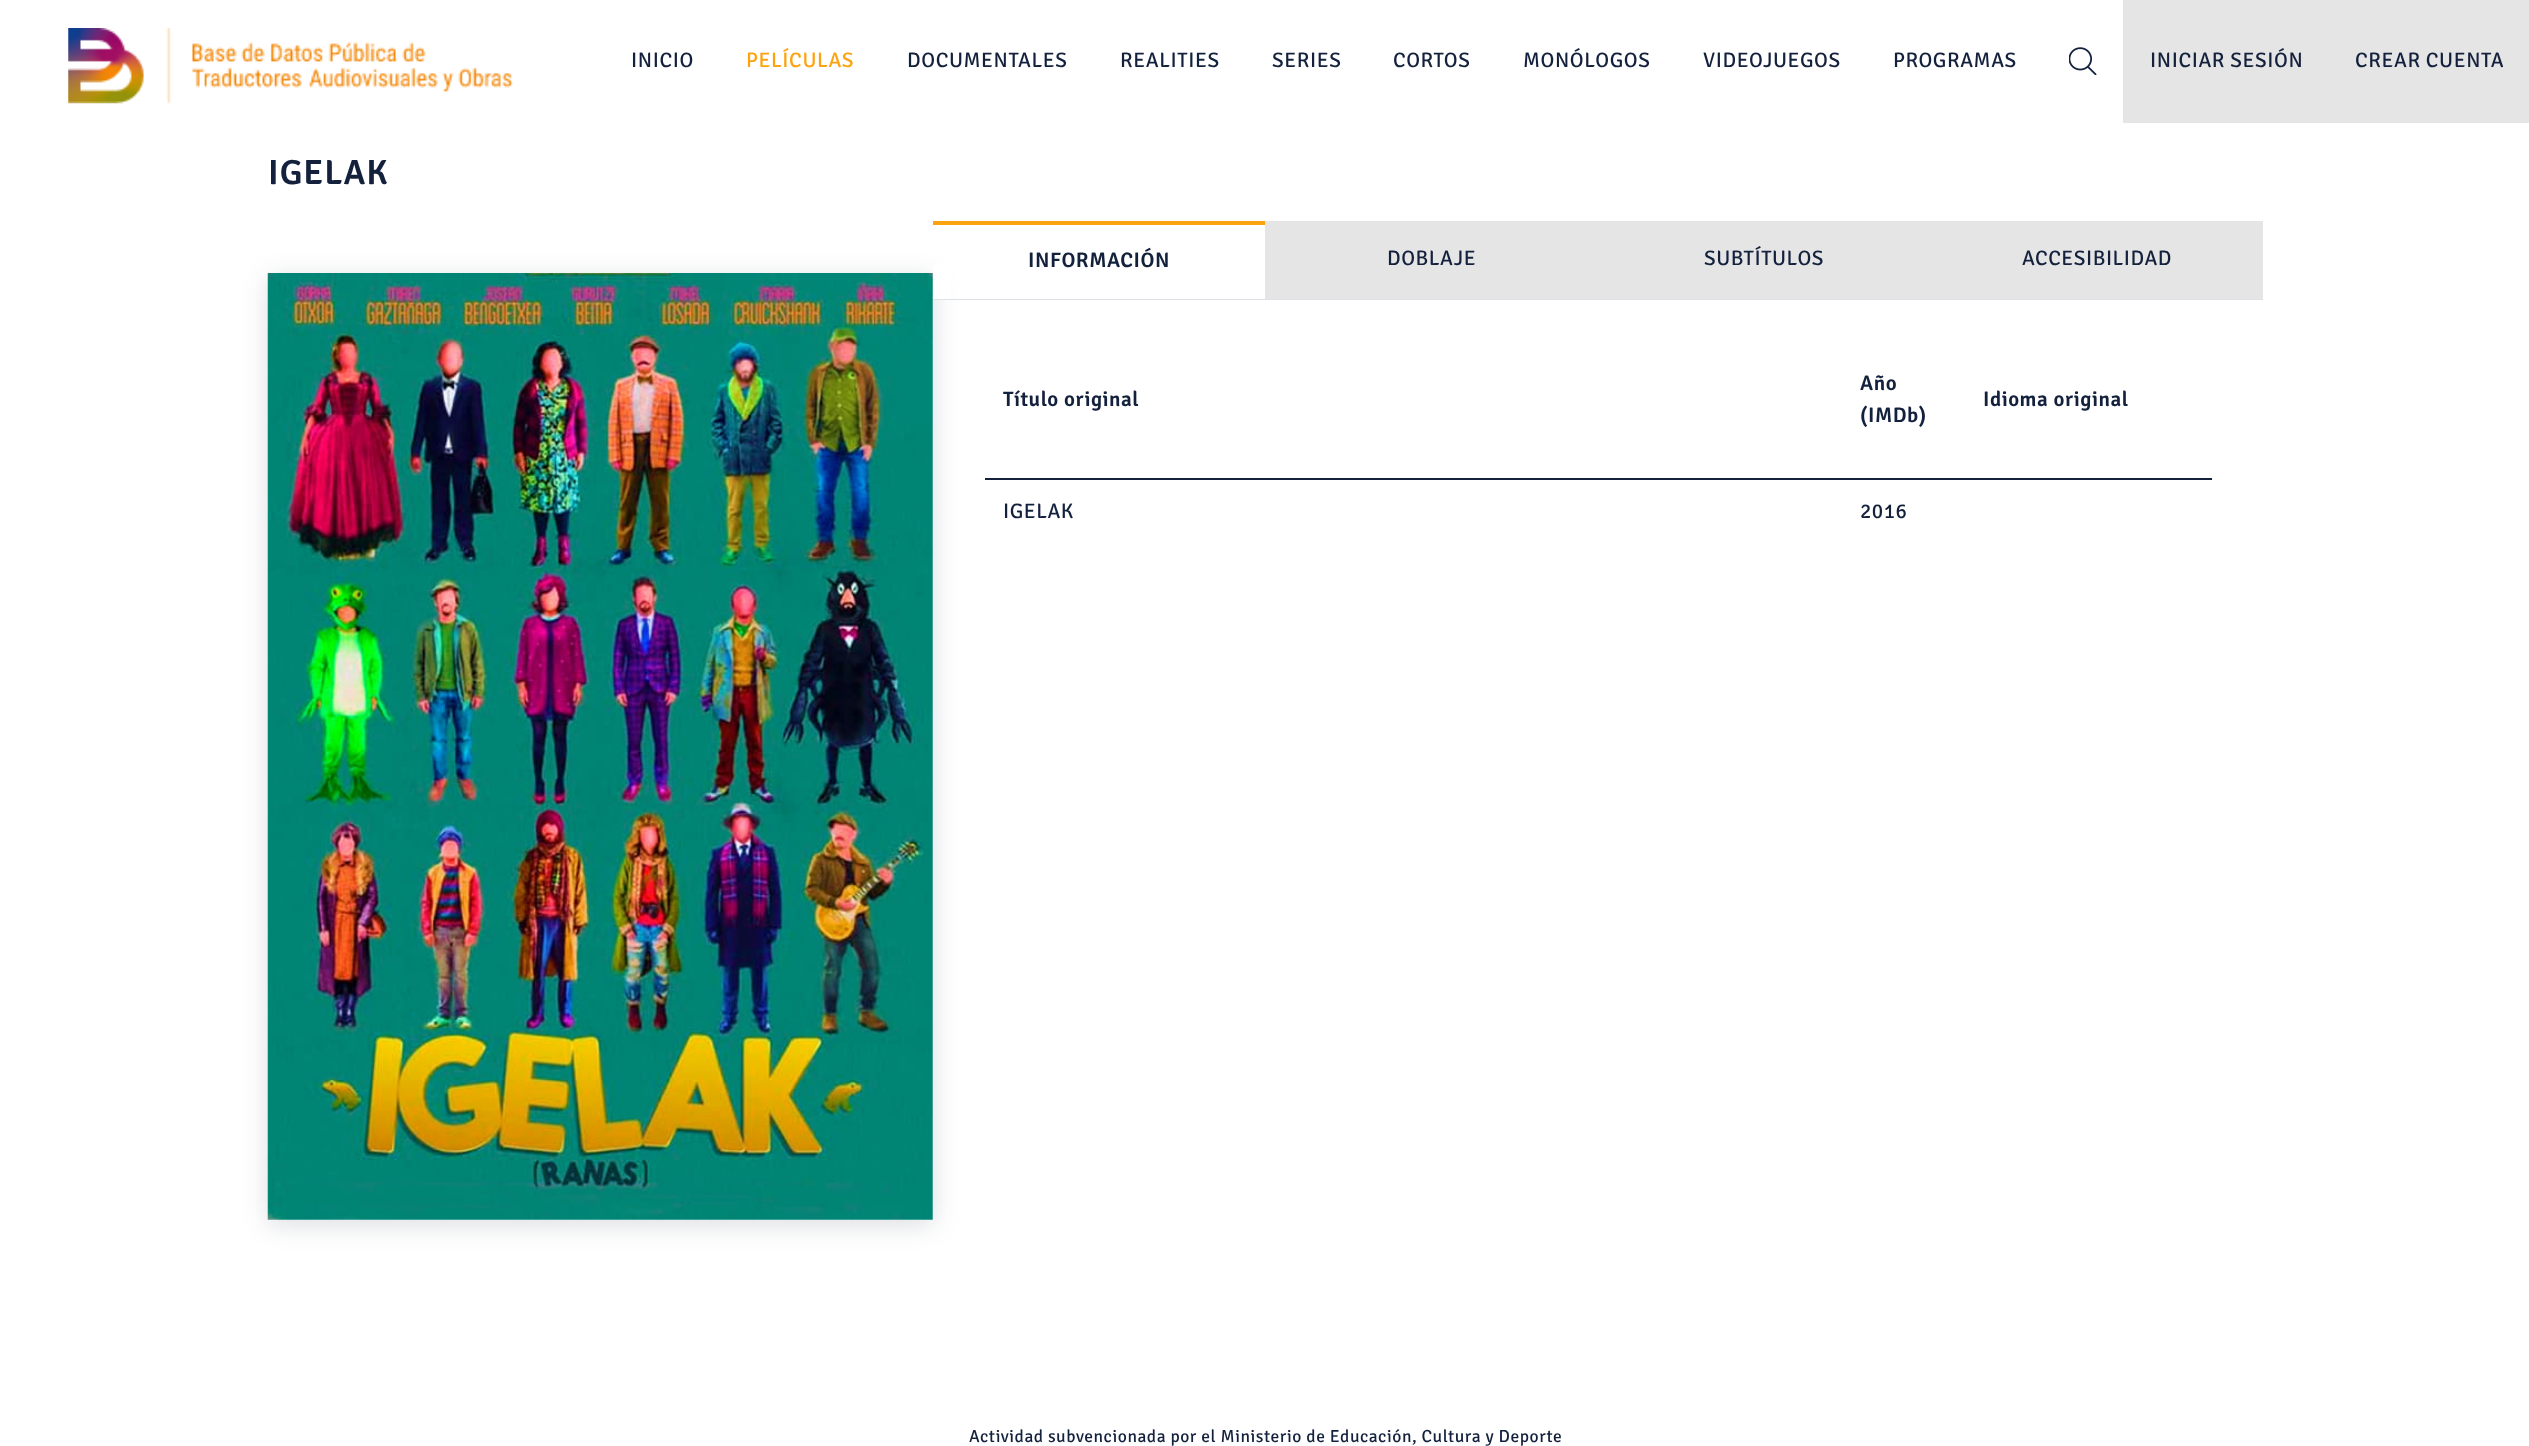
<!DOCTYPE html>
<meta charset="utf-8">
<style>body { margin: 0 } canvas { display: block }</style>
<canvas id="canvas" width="2529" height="1446"></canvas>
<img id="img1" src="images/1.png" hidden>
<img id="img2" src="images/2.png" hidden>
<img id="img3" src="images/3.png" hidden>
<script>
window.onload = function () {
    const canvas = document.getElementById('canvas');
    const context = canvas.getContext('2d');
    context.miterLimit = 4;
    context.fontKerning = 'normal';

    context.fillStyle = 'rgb(255, 255, 255)';
    context.fillRect(0, 0, 2529, 1446);
    context.drawImage(document.getElementById('img1'), 68, 28, 445, 76);
    context.drawImage(document.getElementById('img2'), 2069, 47, 28, 28);
    context.fillStyle = 'rgb(229, 229, 229)';
    context.fillRect(2123, 0, 406, 123);
    context.fillStyle = 'rgba(20, 33, 61, 0.15)';
    context.filter = 'blur(13px)';
    context.beginPath();
    context.rect(268, 278, 665, 947);
    context.fill();
    context.filter = 'none';
    context.fillStyle = 'rgb(255, 255, 255)';
    context.fillRect(268, 273, 665, 947);
    context.drawImage(document.getElementById('img3'), 267, 273, 666, 947);
    context.fillStyle = 'rgb(222, 226, 230)';
    context.fillRect(933, 299, 1330, 1);
    context.fillStyle = 'rgb(255, 255, 255)';
    context.fillRect(933, 265, 18, 34);
    context.fillStyle = 'rgb(252, 163, 17)';
    context.fillRect(933, 221, 332, 4);
    context.fillStyle = 'rgb(229, 229, 229)';
    context.fillRect(1265, 221, 998, 78);
    context.fillStyle = 'rgb(20, 33, 61)';
    context.fillRect(985, 478, 1227, 2);
    context.letterSpacing = '0.6px';
    context.font = '21px Signika';
    context.fillText('INICIO', 631, 67);
    context.fillStyle = 'rgb(252, 163, 17)';
    context.fillText('PELÍCULAS', 746, 67);
    context.fillStyle = 'rgb(20, 33, 61)';
    context.fillText('DOCUMENTALES', 907, 67);
    context.fillText('REALITIES', 1120, 67);
    context.fillText('SERIES', 1272, 67);
    context.fillText('CORTOS', 1393, 67);
    context.fillText('MONÓLOGOS', 1523, 67);
    context.fillText('VIDEOJUEGOS', 1703, 67);
    context.fillText('PROGRAMAS', 1893, 67);
    context.fillText('INICIAR SESIÓN', 2150, 67);
    context.fillText('CREAR CUENTA', 2355, 67);
    context.letterSpacing = '1px';
    context.font = '600 35px Signika';
    context.fillText('IGELAK', 268, 184);
    context.letterSpacing = '0.53px';
    context.font = '600 21px Signika';
    context.fillText('INFORMACIÓN', 1028, 267);
    context.font = '21px Signika';
    context.fillText('DOBLAJE', 1387, 265);
    context.fillText('SUBTÍTULOS', 1704, 265);
    context.fillText('ACCESIBILIDAD', 2022, 265);
    context.font = '600 21px Signika';
    context.fillText('Título original', 1003, 406);
    context.fillText('Año', 1860, 390);
    context.fillText('(IMDb)', 1860, 422);
    context.fillText('Idioma original', 1983, 406);
    context.font = '21px Signika';
    context.fillText('IGELAK', 1003, 518);
    context.fillText('2016', 1860, 518);
    context.font = '17.5px Signika';
    context.fillText('Actividad subvencionada por el Ministerio de Educación, Cultura y Deporte', 969, 1442);
};
</script>
